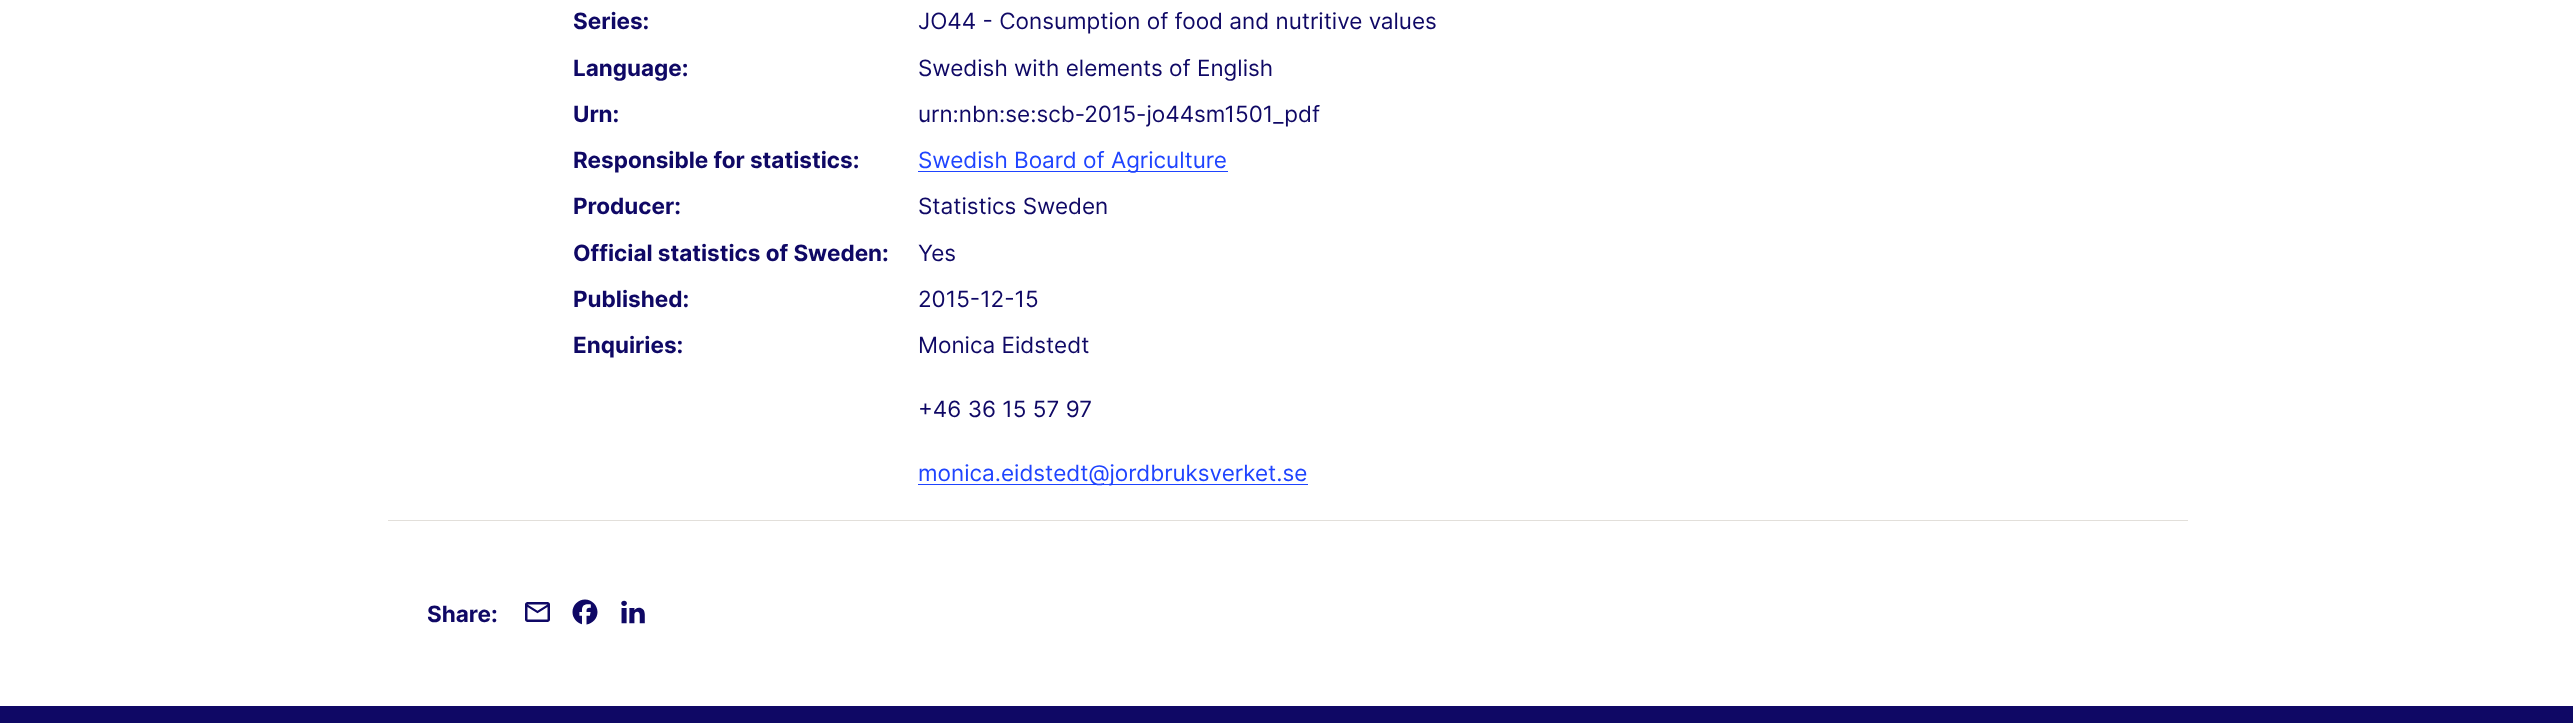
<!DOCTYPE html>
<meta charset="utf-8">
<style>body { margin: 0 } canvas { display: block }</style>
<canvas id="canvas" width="2573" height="723"></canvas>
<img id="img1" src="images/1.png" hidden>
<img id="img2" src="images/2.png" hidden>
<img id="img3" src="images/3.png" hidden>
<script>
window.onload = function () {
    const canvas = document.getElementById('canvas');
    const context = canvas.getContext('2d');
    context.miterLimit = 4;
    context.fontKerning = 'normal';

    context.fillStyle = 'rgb(255, 255, 255)';
    context.fillRect(0, 0, 2573, 723);
    context.fillStyle = 'rgb(31, 68, 255)';
    context.fillRect(918, 171, 310, 1);
    context.fillRect(918, 484, 390, 1);
    context.fillStyle = 'rgb(226, 223, 218)';
    context.fillRect(388, 520, 1800, 1);
    context.drawImage(document.getElementById('img1'), 525, 602, 25, 20);
    context.drawImage(document.getElementById('img2'), 572, 599, 26, 26);
    context.drawImage(document.getElementById('img3'), 621, 600, 24, 24);
    context.fillStyle = 'rgb(15, 8, 101)';
    context.fillRect(0, 706, 2573, 17);
    context.font = 'bold 22.5px Inter';
    context.fillText('Series:', 573, 29);
    context.font = '22.5px Inter';
    context.fillText('JO44 - Consumption of food and nutritive values', 918, 29);
    context.font = 'bold 22.5px Inter';
    context.fillText('Language:', 573, 76);
    context.font = '22.5px Inter';
    context.fillText('Swedish with elements of English', 918, 76);
    context.font = 'bold 22.5px Inter';
    context.fillText('Urn:', 573, 122);
    context.font = '22.5px Inter';
    context.fillText('urn:nbn:se:scb-2015-jo44sm1501_pdf', 918, 122);
    context.font = 'bold 22.5px Inter';
    context.fillText('Responsible for statistics:', 573, 168);
    context.font = '22.5px Inter';
    context.fillStyle = 'rgb(31, 68, 255)';
    context.fillText('Swedish Board of Agriculture', 918, 168);
    context.font = 'bold 22.5px Inter';
    context.fillStyle = 'rgb(15, 8, 101)';
    context.fillText('Producer:', 573, 214);
    context.font = '22.5px Inter';
    context.fillText('Statistics Sweden', 918, 214);
    context.font = 'bold 22.5px Inter';
    context.fillText('Official statistics of Sweden:', 573, 261);
    context.font = '22.5px Inter';
    context.fillText('Yes', 918, 261);
    context.font = 'bold 22.5px Inter';
    context.fillText('Published:', 573, 307);
    context.font = '22.5px Inter';
    context.fillText('2015-12-15', 918, 307);
    context.font = 'bold 22.5px Inter';
    context.fillText('Enquiries:', 573, 353);
    context.font = '22.5px Inter';
    context.fillText('Monica Eidstedt', 918, 353);
    context.fillText('+46 36 15 57 97', 918, 417);
    context.fillStyle = 'rgb(31, 68, 255)';
    context.fillText('monica.eidstedt@jordbruksverket.se', 918, 481);
    context.font = 'bold 22.5px Inter';
    context.fillStyle = 'rgb(15, 8, 101)';
    context.fillText('Share:', 427, 622);
};
</script>
